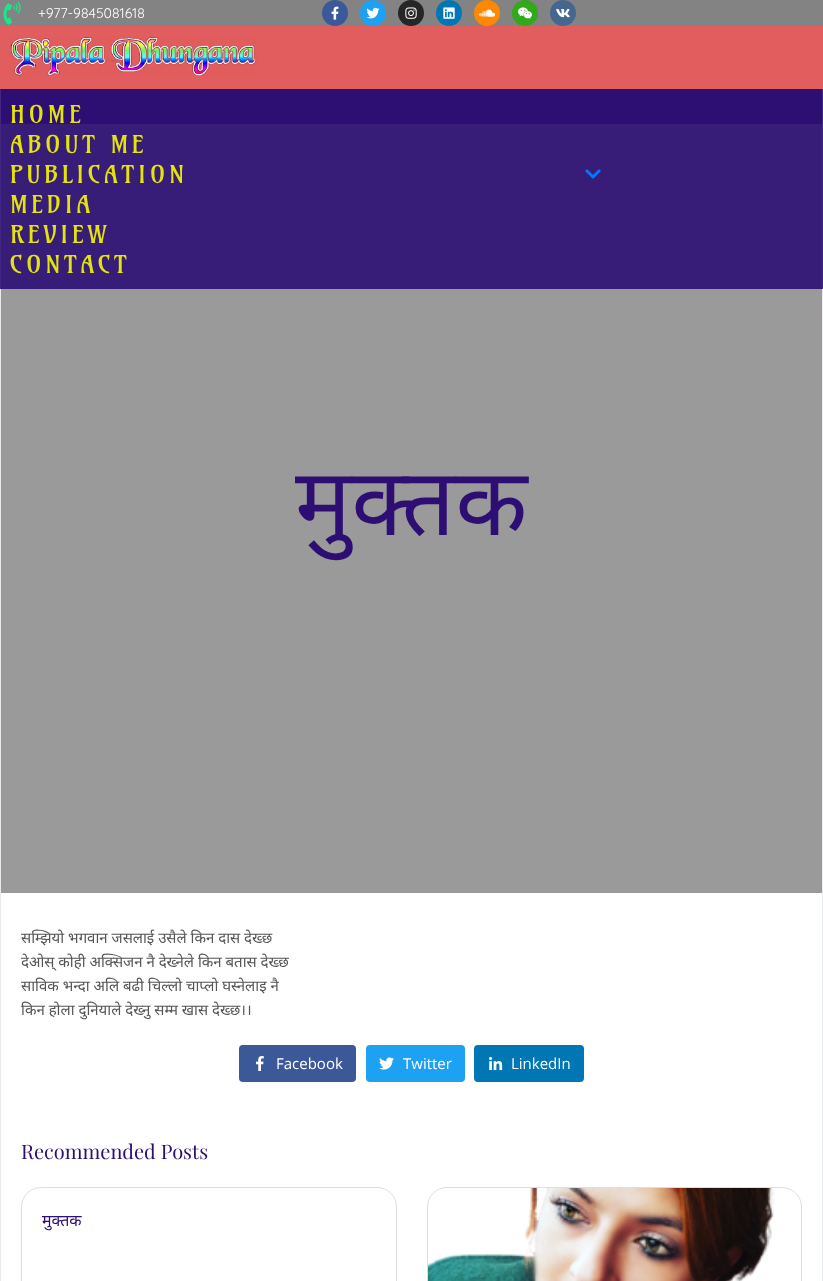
<!DOCTYPE html>
<meta charset="utf-8">
<style>body { margin: 0 } canvas { display: block }</style>
<canvas id="canvas" width="823" height="1281"></canvas>
<img id="img1" src="images/1.png" hidden>
<img id="img2" src="images/2.png" hidden>
<img id="img3" src="images/3.png" hidden>
<img id="img4" src="images/4.png" hidden>
<img id="img5" src="images/5.png" hidden>
<img id="img6" src="images/6.png" hidden>
<img id="img7" src="images/7.png" hidden>
<img id="img8" src="images/8.png" hidden>
<img id="img9" src="images/9.png" hidden>
<img id="img10" src="images/10.png" hidden>
<img id="img11" src="images/11.png" hidden>
<img id="img12" src="images/12.png" hidden>
<img id="img13" src="images/13.png" hidden>
<img id="img14" src="images/14.png" hidden>
<script>
window.onload = function () {
    const canvas = document.getElementById('canvas');
    const context = canvas.getContext('2d');
    context.miterLimit = 4;
    context.fontKerning = 'normal';

    context.fillStyle = 'rgb(255, 255, 255)';
    context.fillRect(0, 0, 823, 1281);
    context.strokeStyle = 'rgb(233, 236, 239)';
    context.strokeRect(0.5, -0.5, 822, 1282);
    context.fillStyle = 'rgb(131, 131, 131)';
    context.fillRect(0, 0, 823, 26);
    context.drawImage(document.getElementById('img1'), 3, 1, 18, 24);
    context.fillStyle = 'rgb(59, 89, 152)';
    context.beginPath();
    context.arc(335, 13, 13, 0, 2 * Math.PI);
    context.fill();
    context.drawImage(document.getElementById('img2'), 331, 6, 8, 14);
    context.fillStyle = 'rgb(29, 161, 242)';
    context.beginPath();
    context.arc(373, 13, 13, 0, 2 * Math.PI);
    context.fill();
    context.drawImage(document.getElementById('img3'), 366, 7, 14, 12);
    context.fillStyle = 'rgb(38, 38, 38)';
    context.beginPath();
    context.arc(411, 13, 13, 0, 2 * Math.PI);
    context.fill();
    context.drawImage(document.getElementById('img4'), 405, 7, 12, 12);
    context.fillStyle = 'rgb(0, 119, 181)';
    context.beginPath();
    context.arc(449, 13, 13, 0, 2 * Math.PI);
    context.fill();
    context.drawImage(document.getElementById('img5'), 443, 7, 12, 12);
    context.fillStyle = 'rgb(255, 136, 0)';
    context.beginPath();
    context.arc(487, 13, 13, 0, 2 * Math.PI);
    context.fill();
    context.drawImage(document.getElementById('img6'), 478, 9, 18, 8);
    context.fillStyle = 'rgb(49, 169, 24)';
    context.beginPath();
    context.arc(525, 13, 13, 0, 2 * Math.PI);
    context.fill();
    context.drawImage(document.getElementById('img7'), 518, 7, 14, 12);
    context.fillStyle = 'rgb(69, 102, 142)';
    context.beginPath();
    context.arc(563, 13, 13, 0, 2 * Math.PI);
    context.fill();
    context.drawImage(document.getElementById('img8'), 556, 9, 14, 9);
    context.fillStyle = 'rgb(226, 93, 93)';
    context.fillRect(0, 26, 823, 63);
    context.drawImage(document.getElementById('img9'), 10, 37, 247, 39);
    context.fillStyle = 'rgb(44, 15, 115)';
    context.fillRect(1, 89, 821, 35);
    context.fillStyle = 'rgb(154, 154, 154)';
    context.fillRect(1, 124, 821, 769);
    context.fillStyle = 'rgba(45, 15, 116, 0.9)';
    context.fillRect(0, 89, 823, 200);
    context.drawImage(document.getElementById('img10'), 585, 169, 16, 10);
    context.fillStyle = 'rgb(59, 89, 152)';
    context.beginPath();
    context.roundRect(239, 1045, 117, 37, 4);
    context.fill();
    context.drawImage(document.getElementById('img11'), 256, 1056, 8, 15);
    context.fillStyle = 'rgb(29, 161, 242)';
    context.beginPath();
    context.roundRect(366, 1045, 99, 37, 4);
    context.fill();
    context.drawImage(document.getElementById('img12'), 379, 1057, 15, 13);
    context.fillStyle = 'rgb(0, 119, 181)';
    context.beginPath();
    context.roundRect(474, 1045, 110, 37, 4);
    context.fill();
    context.drawImage(document.getElementById('img13'), 489, 1057, 14, 14);
    context.beginPath();
    context.roundRect(21.5, 1187.5, 375, 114, 19.5);
    context.strokeStyle = 'rgb(222, 222, 222)';
    context.stroke();
    context.beginPath();
    context.roundRect(427.5, 1187.5, 374, 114, 19.5);
    context.stroke();
    context.drawImage(document.getElementById('img14'), 428, 1188, 347, 93);
    context.font = '14px Quicksand';
    context.fillStyle = 'rgb(255, 255, 255)';
    context.fillText('+977-9845081618', 38, 18);
    context.letterSpacing = '3.9px';
    context.font = '24px Amarante';
    context.fillStyle = 'rgb(227, 228, 9)';
    context.fillText('HOME', 10, 123);
    context.fillText('ABOUT ME', 10, 153);
    context.fillText('PUBLICATION', 10, 183);
    context.fillText('MEDIA', 10, 213);
    context.fillText('REVIEW', 10, 243);
    context.fillText('CONTACT', 10, 273);
    context.letterSpacing = '0px';
    context.font = '94px Noto Sans';
    context.fillStyle = 'rgb(45, 15, 116)';
    context.fillText('मुक्तक', 295, 535);
    context.font = '15px Noto Sans';
    context.fillStyle = 'rgb(85, 85, 85)';
    context.fillText('सम्झियो भगवान जसलाई उसैले किन दास देख्छ', 21, 943);
    context.fillText('देओस् कोही अक्सिजन नै देख्नेले किन बतास देख्छ', 21, 967);
    context.fillText('साविक भन्दा अलि बढी चिल्लो चाप्लो घस्नेलाइ नै', 21, 991);
    context.fillText('किन होला दुनियाले देख्नु सम्म खास देख्छ।।', 21, 1015);
    context.font = '15px Open Sans';
    context.fillStyle = 'rgb(255, 255, 255)';
    context.fillText('Facebook', 276, 1069);
    context.fillText('Twitter', 403, 1069);
    context.fillText('LinkedIn', 511, 1069);
    context.font = '20px Playfair Display';
    context.fillStyle = 'rgb(45, 15, 116)';
    context.fillText('Recommended Posts', 21, 1159);
    context.font = '16px Noto Sans';
    context.fillText('मुक्तक', 42, 1226);
};
</script>
